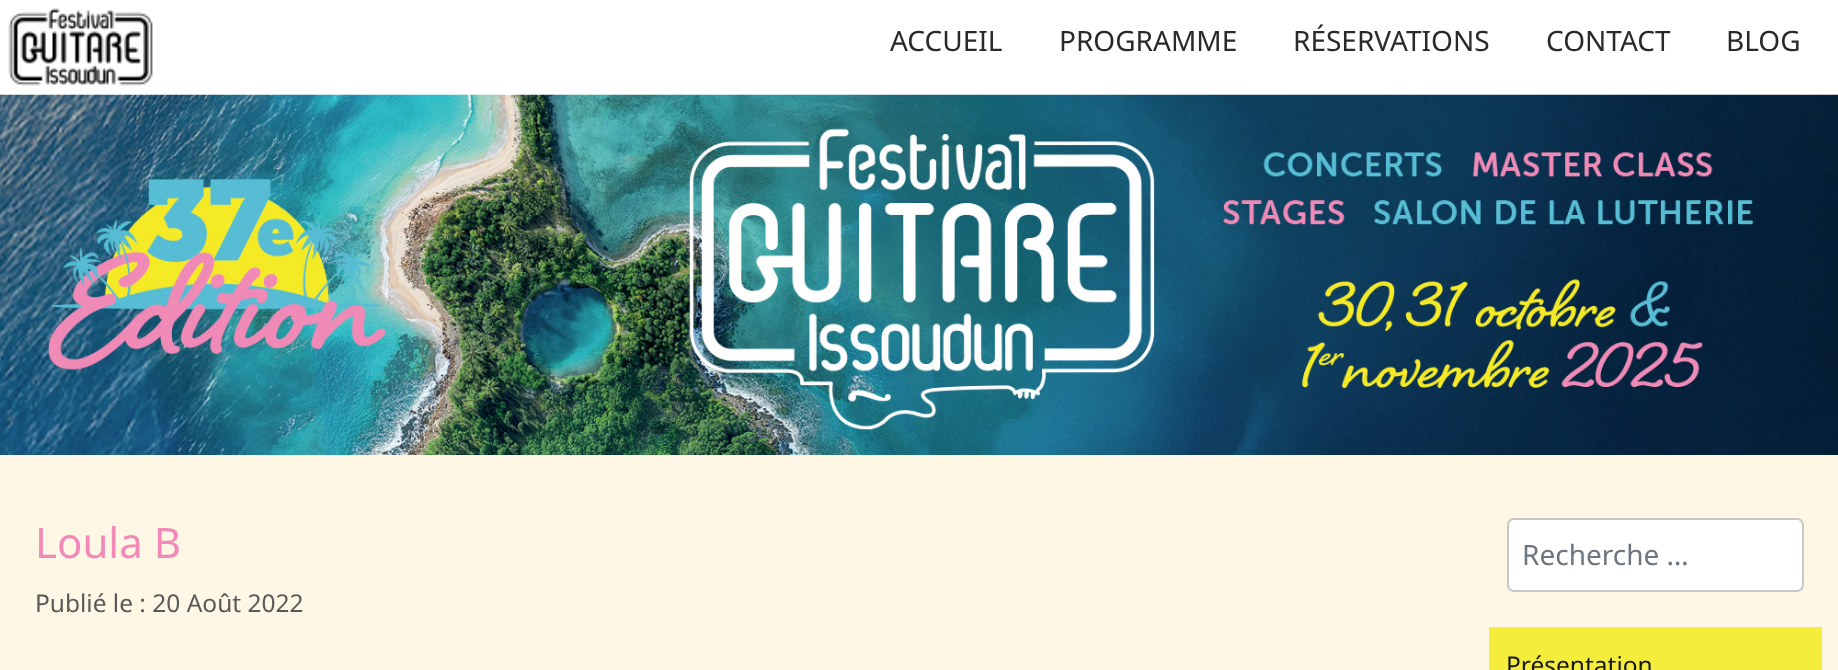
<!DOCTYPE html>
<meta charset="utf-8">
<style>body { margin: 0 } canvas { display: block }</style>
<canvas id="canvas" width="1838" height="670"></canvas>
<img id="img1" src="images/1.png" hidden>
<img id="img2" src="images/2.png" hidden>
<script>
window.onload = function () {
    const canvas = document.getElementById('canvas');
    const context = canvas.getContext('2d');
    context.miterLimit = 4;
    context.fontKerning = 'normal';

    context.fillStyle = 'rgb(255, 247, 229)';
    context.fillRect(0, 0, 1838, 670);
    context.fillStyle = 'rgb(255, 255, 255)';
    context.fillRect(0, 0, 1838, 95);
    context.drawImage(document.getElementById('img1'), 8, 8, 145, 78);
    context.drawImage(document.getElementById('img2'), 0, 94, 1838, 361);
    context.beginPath();
    context.roundRect(1508, 519, 295, 72, 6);
    context.fill();
    context.strokeStyle = 'rgb(199, 199, 199)';
    context.lineWidth = 2;
    context.stroke();
    context.fillStyle = 'rgb(244, 237, 59)';
    context.fillRect(1489, 627, 333, 43);
    context.font = '28px Noto Sans';
    context.fillStyle = 'rgb(41, 41, 41)';
    context.fillText('ACCUEIL', 890, 51);
    context.fillText('PROGRAMME', 1059, 51);
    context.fillText('RÉSERVATIONS', 1293, 51);
    context.fillText('CONTACT', 1546, 51);
    context.fillText('BLOG', 1726, 51);
    context.font = '42px Noto Sans';
    context.fillStyle = 'rgb(243, 137, 184)';
    context.fillText('Loula B', 35, 558);
    context.font = '24.5px Noto Sans';
    context.fillStyle = 'rgb(89, 90, 88)';
    context.fillText('Publié le : 20 Août 2022', 35, 612);
    context.font = '28px Noto Sans';
    context.fillStyle = 'rgb(109, 117, 126)';
    context.fillText('Recherche …', 1522, 565);
    context.font = '24.5px Noto Sans';
    context.fillStyle = 'rgb(23, 23, 23)';
    context.fillText('Présentation', 1506, 674);
};
</script>
